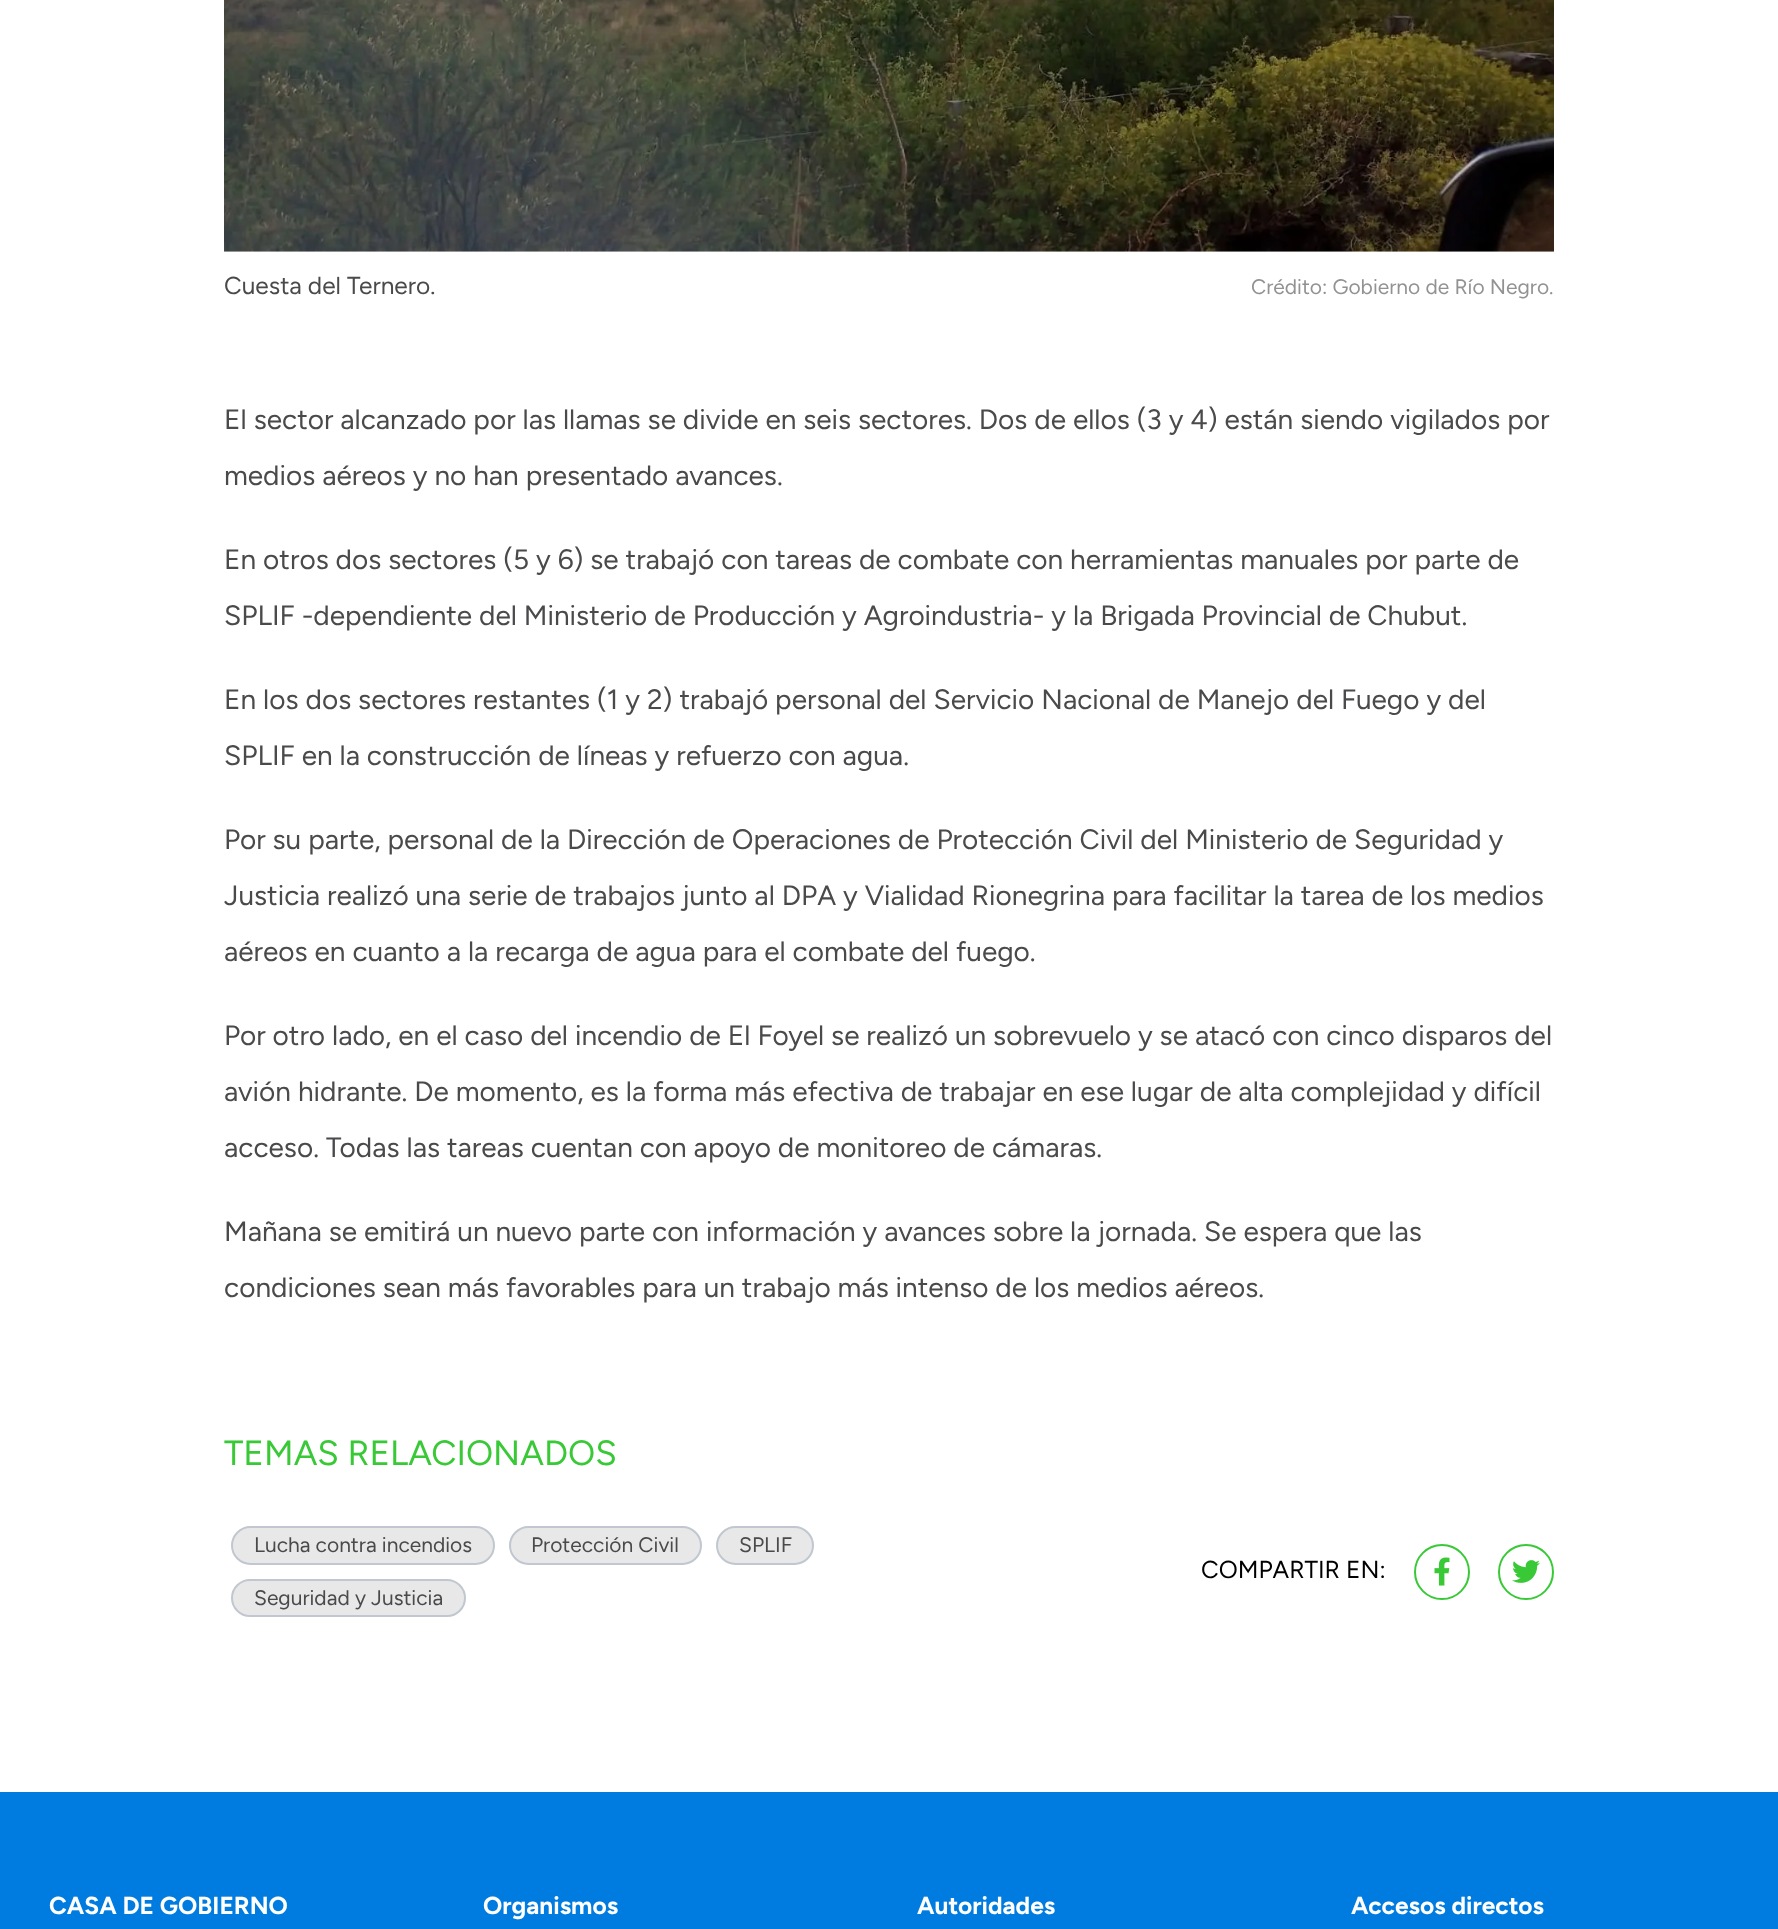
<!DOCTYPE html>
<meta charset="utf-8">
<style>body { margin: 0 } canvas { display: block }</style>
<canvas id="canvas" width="1778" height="1929"></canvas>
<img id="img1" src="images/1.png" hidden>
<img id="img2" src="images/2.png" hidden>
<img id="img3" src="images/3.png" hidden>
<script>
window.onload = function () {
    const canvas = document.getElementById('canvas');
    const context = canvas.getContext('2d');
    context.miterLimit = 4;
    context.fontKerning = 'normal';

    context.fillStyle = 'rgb(255, 255, 255)';
    context.fillRect(0, 0, 1778, 1929);
    context.drawImage(document.getElementById('img1'), 224, 0, 1330, 252);
    context.fillStyle = 'rgb(232, 232, 232)';
    context.beginPath();
    context.roundRect(232, 1527, 262, 37, 18.5);
    context.fill();
    context.strokeStyle = 'rgb(193, 199, 208)';
    context.lineWidth = 2;
    context.stroke();
    context.beginPath();
    context.roundRect(510, 1527, 191, 37, 18.5);
    context.fill();
    context.stroke();
    context.beginPath();
    context.roundRect(717, 1527, 96, 37, 18.5);
    context.fill();
    context.stroke();
    context.beginPath();
    context.roundRect(232, 1580, 233, 36, 18);
    context.fill();
    context.stroke();
    context.beginPath();
    context.arc(1442, 1572, 27, 0, 2 * Math.PI);
    context.strokeStyle = 'rgb(57, 201, 55)';
    context.stroke();
    context.drawImage(document.getElementById('img2'), 1434, 1557, 16, 29);
    context.beginPath();
    context.arc(1526, 1572, 27, 0, 2 * Math.PI);
    context.stroke();
    context.drawImage(document.getElementById('img3'), 1512, 1560, 28, 23);
    context.fillStyle = 'rgb(0, 123, 224)';
    context.fillRect(0, 1792, 1778, 137);
    context.font = '24.5px Figtree';
    context.fillStyle = 'rgb(74, 73, 75)';
    context.fillText('Cuesta del Ternero.', 224, 294);
    context.font = '21px Figtree';
    context.fillStyle = 'rgb(146, 146, 147)';
    context.fillText('Crédito: Gobierno de Río Negro.', 1251, 294);
    context.font = '28px Figtree';
    context.fillStyle = 'rgb(74, 73, 75)';
    context.fillText('El sector alcanzado por las llamas se divide en seis sectores. Dos de ellos (3 y 4) están siendo vigilados por', 224, 429);
    context.fillText('medios aéreos y no han presentado avances.', 224, 485);
    context.fillText('En otros dos sectores (5 y 6) se trabajó con tareas de combate con herramientas manuales por parte de', 224, 569);
    context.fillText('SPLIF -dependiente del Ministerio de Producción y Agroindustria- y la Brigada Provincial de Chubut.', 224, 625);
    context.fillText('En los dos sectores restantes (1 y 2) trabajó personal del Servicio Nacional de Manejo del Fuego y del', 224, 709);
    context.fillText('SPLIF en la construcción de líneas y refuerzo con agua.', 224, 765);
    context.fillText('Por su parte, personal de la Dirección de Operaciones de Protección Civil del Ministerio de Seguridad y', 224, 849);
    context.fillText('Justicia realizó una serie de trabajos junto al DPA y Vialidad Rionegrina para facilitar la tarea de los medios', 224, 905);
    context.fillText('aéreos en cuanto a la recarga de agua para el combate del fuego.', 224, 961);
    context.fillText('Por otro lado, en el caso del incendio de El Foyel se realizó un sobrevuelo y se atacó con cinco disparos del', 224, 1045);
    context.fillText('avión hidrante. De momento, es la forma más efectiva de trabajar en ese lugar de alta complejidad y difícil', 224, 1101);
    context.fillText('acceso. Todas las tareas cuentan con apoyo de monitoreo de cámaras.', 224, 1157);
    context.fillText('Mañana se emitirá un nuevo parte con información y avances sobre la jornada. Se espera que las', 224, 1241);
    context.fillText('condiciones sean más favorables para un trabajo más intenso de los medios aéreos.', 224, 1297);
    context.font = '35px Figtree';
    context.fillStyle = 'rgb(57, 201, 55)';
    context.fillText('TEMAS RELACIONADOS', 224, 1465);
    context.font = '21px Figtree';
    context.fillStyle = 'rgb(74, 73, 75)';
    context.fillText('Lucha contra incendios', 254, 1552);
    context.fillText('Protección Civil', 531, 1552);
    context.fillText('SPLIF', 739, 1552);
    context.fillText('Seguridad y Justicia', 254, 1605);
    context.font = '24.5px Figtree';
    context.fillStyle = 'rgb(0, 0, 0)';
    context.fillText('COMPARTIR EN:', 1201, 1578);
    context.font = 'bold 24.5px Figtree';
    context.fillStyle = 'rgb(255, 255, 255)';
    context.fillText('CASA DE GOBIERNO', 49, 1914);
    context.fillText('Organismos', 483, 1914);
    context.fillText('Autoridades', 917, 1914);
    context.fillText('Accesos directos', 1351, 1914);
};
</script>
